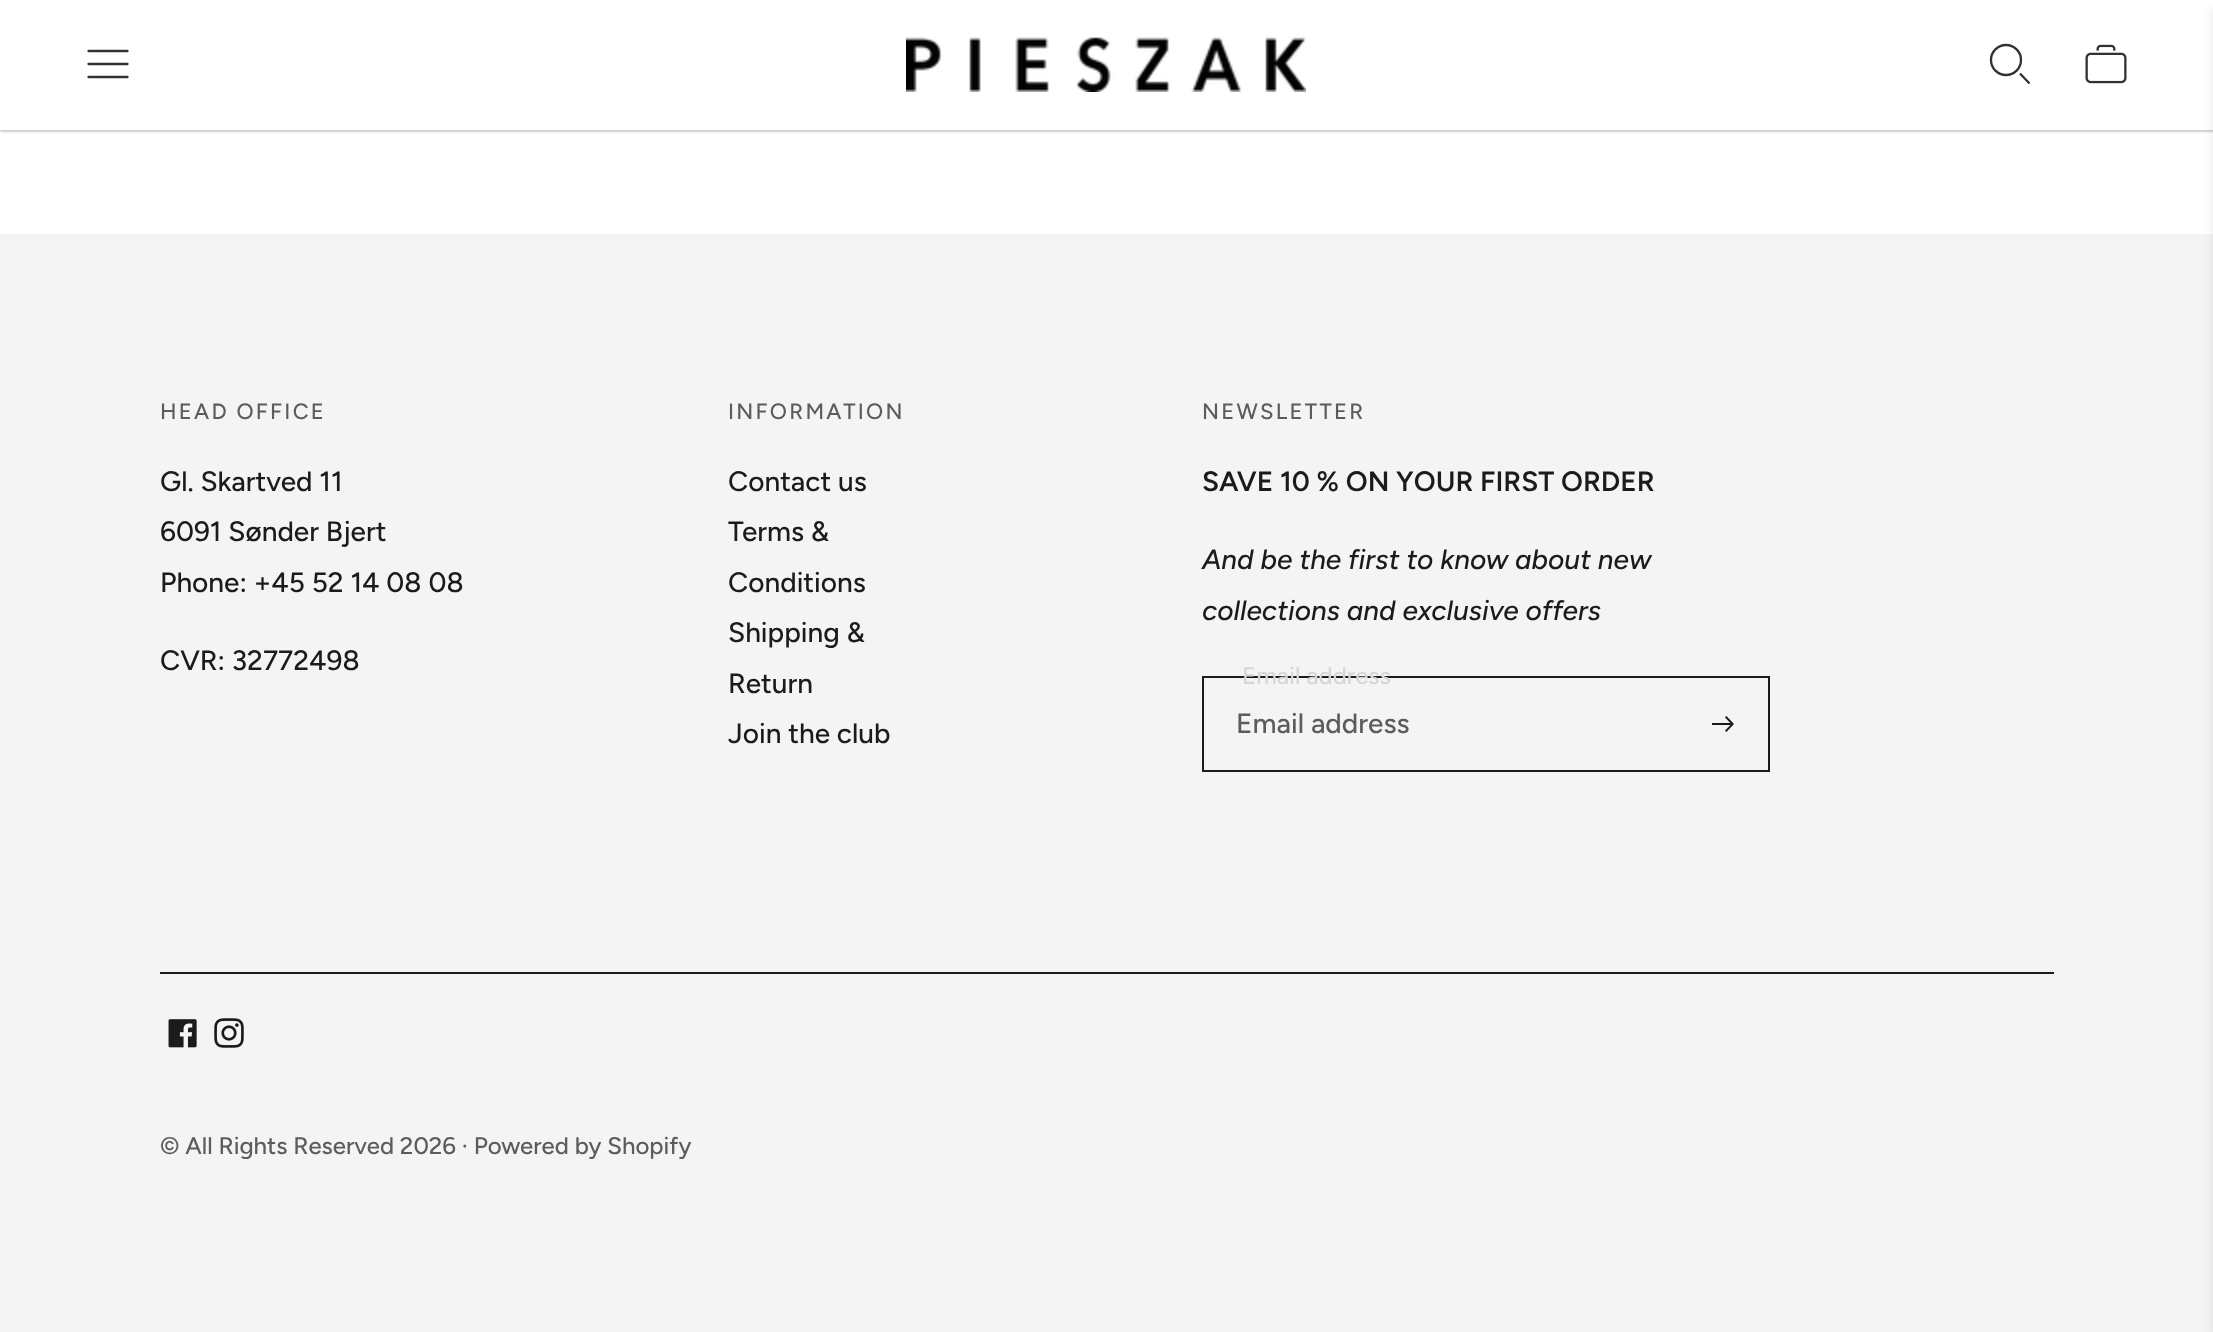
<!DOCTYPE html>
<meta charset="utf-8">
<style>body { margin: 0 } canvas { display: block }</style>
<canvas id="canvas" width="2213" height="1332"></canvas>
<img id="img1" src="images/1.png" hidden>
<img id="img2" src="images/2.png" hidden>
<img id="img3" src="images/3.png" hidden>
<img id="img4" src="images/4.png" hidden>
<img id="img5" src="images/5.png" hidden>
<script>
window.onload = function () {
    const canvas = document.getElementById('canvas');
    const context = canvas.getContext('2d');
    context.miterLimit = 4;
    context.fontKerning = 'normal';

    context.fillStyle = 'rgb(255, 255, 255)';
    context.fillRect(0, 0, 2213, 1332);
    context.save();
    context.beginPath();
    context.rect(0, 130, 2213, 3);
    context.clip();
    context.fillStyle = 'rgba(0, 0, 0, 0.2)';
    context.filter = 'blur(1px)';
    context.beginPath();
    context.rect(0, 2, 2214, 130);
    context.fill();
    context.filter = 'none';
    context.restore();
    context.beginPath();
    context.moveTo(88.5, 64);
    context.lineTo(127.5, 64);
    context.moveTo(88.5, 51);
    context.lineTo(127.5, 51);
    context.moveTo(88.5, 77);
    context.lineTo(127.5, 77);
    context.strokeStyle = 'rgb(49, 49, 49)';
    context.lineWidth = 2.3;
    context.lineCap = 'round';
    context.lineJoin = 'round';
    context.stroke();
    context.drawImage(document.getElementById('img1'), 906, 37, 400, 55);
    context.beginPath();
    context.arc(2006, 60, 15, 0, 2 * Math.PI);
    context.stroke();
    context.beginPath();
    context.moveTo(2020, 73.5);
    context.lineTo(2029.5, 83.5);
    context.lineCap = 'butt';
    context.lineJoin = 'miter';
    context.stroke();
    context.drawImage(document.getElementById('img2'), 2085, 44, 42, 40);
    context.fillStyle = 'rgb(244, 244, 244)';
    context.fillRect(0, 234, 2213, 1098);
    context.strokeStyle = 'rgb(27, 27, 27)';
    context.lineWidth = 2;
    context.strokeRect(1203, 677, 566, 94);
    context.drawImage(document.getElementById('img3'), 1712, 716, 22, 16);
    context.fillStyle = 'rgb(27, 27, 27)';
    context.fillRect(160, 972, 1894, 2);
    context.drawImage(document.getElementById('img4'), 168, 1019, 29, 29);
    context.drawImage(document.getElementById('img5'), 214, 1018, 30, 30);
    context.fillStyle = 'rgba(0, 0, 0, 0.1)';
    context.filter = 'blur(6px)';
    context.beginPath();
    context.rect(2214, 8, 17, 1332);
    context.fill();
    context.filter = 'none';
    context.letterSpacing = '2.25px';
    context.font = '500 22px Figtree';
    context.fillStyle = 'rgb(92, 92, 92)';
    context.fillText('HEAD OFFICE', 160, 419);
    context.letterSpacing = '0px';
    context.font = '500 28px Figtree';
    context.fillStyle = 'rgb(27, 27, 27)';
    context.fillText('Gl. Skartved 11', 160, 491);
    context.fillText('6091 Sønder Bjert', 160, 541);
    context.fillText('Phone: +45 52 14 08 08', 160, 592);
    context.fillText('CVR: 32772498', 160, 670);
    context.letterSpacing = '2.25px';
    context.font = '500 22px Figtree';
    context.fillStyle = 'rgb(92, 92, 92)';
    context.fillText('INFORMATION', 728, 419);
    context.letterSpacing = '0px';
    context.font = '500 28px Figtree';
    context.fillStyle = 'rgb(27, 27, 27)';
    context.fillText('Contact us', 728, 491);
    context.fillText('Terms &', 728, 541);
    context.fillText('Conditions', 728, 592);
    context.fillText('Shipping &', 728, 642);
    context.fillText('Return', 728, 693);
    context.fillText('Join the club', 728, 743);
    context.letterSpacing = '2.25px';
    context.font = '500 22px Figtree';
    context.fillStyle = 'rgb(92, 92, 92)';
    context.fillText('NEWSLETTER', 1202, 419);
    context.letterSpacing = '0px';
    context.font = '600 28px Figtree';
    context.fillStyle = 'rgb(27, 27, 27)';
    context.fillText('SAVE 10 % ON YOUR FIRST ORDER', 1202, 491);
    context.font = 'italic 500 28px Figtree';
    context.fillText('And be the first to know about new', 1202, 569);
    context.fillText('collections and exclusive offers', 1202, 620);
    context.font = '500 24px Figtree';
    context.fillStyle = 'rgb(214, 214, 214)';
    context.fillText('Email address', 1242, 684);
    context.font = '500 28px Figtree';
    context.fillStyle = 'rgb(92, 92, 92)';
    context.fillText('Email address', 1236, 733);
    context.font = '500 24px Figtree';
    context.fillText('© All Rights Reserved 2026 · Powered by Shopify', 160, 1154);
};
</script>
